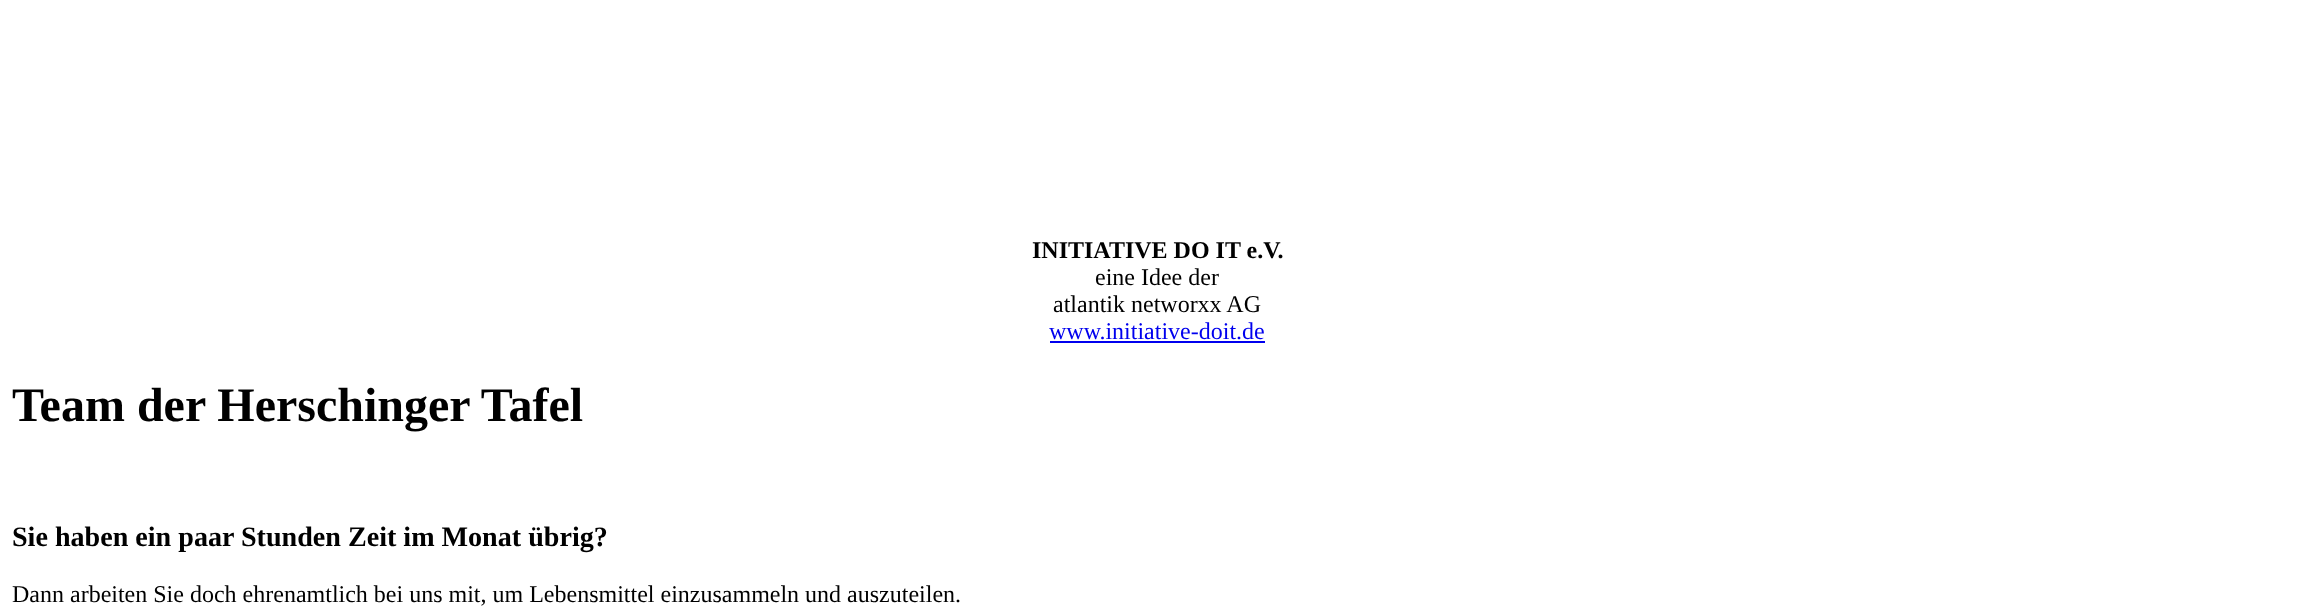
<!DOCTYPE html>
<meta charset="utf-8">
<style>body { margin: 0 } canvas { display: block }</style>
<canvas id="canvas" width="2314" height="610"></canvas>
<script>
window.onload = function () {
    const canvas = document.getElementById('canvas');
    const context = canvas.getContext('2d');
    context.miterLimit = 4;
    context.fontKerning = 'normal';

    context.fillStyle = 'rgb(255, 255, 255)';
    context.fillRect(0, 0, 2314, 610);
    context.fillStyle = 'rgb(0, 0, 238)';
    context.fillRect(1050, 341, 215, 2);
    context.font = 'bold 24px Liberation Serif';
    context.fillStyle = 'rgb(0, 0, 0)';
    context.fillText('INITIATIVE DO IT e.V.', 1032, 258);
    context.font = '24px Liberation Serif';
    context.fillText('eine Idee der', 1095, 285);
    context.fillText('atlantik networxx AG', 1053, 312);
    context.fillStyle = 'rgb(0, 0, 238)';
    context.fillText('www.initiative-doit.de', 1049, 339);
    context.font = 'bold 48px Liberation Serif';
    context.fillStyle = 'rgb(0, 0, 0)';
    context.fillText('Team der Herschinger Tafel', 12, 421);
    context.font = 'bold 28.1px Liberation Serif';
    context.fillText('Sie haben ein paar Stunden Zeit im Monat übrig?', 12, 546);
    context.font = '24px Liberation Serif';
    context.fillText('Dann arbeiten Sie doch ehrenamtlich bei uns mit, um Lebensmittel einzusammeln und auszuteilen.', 12, 602);
};
</script>
